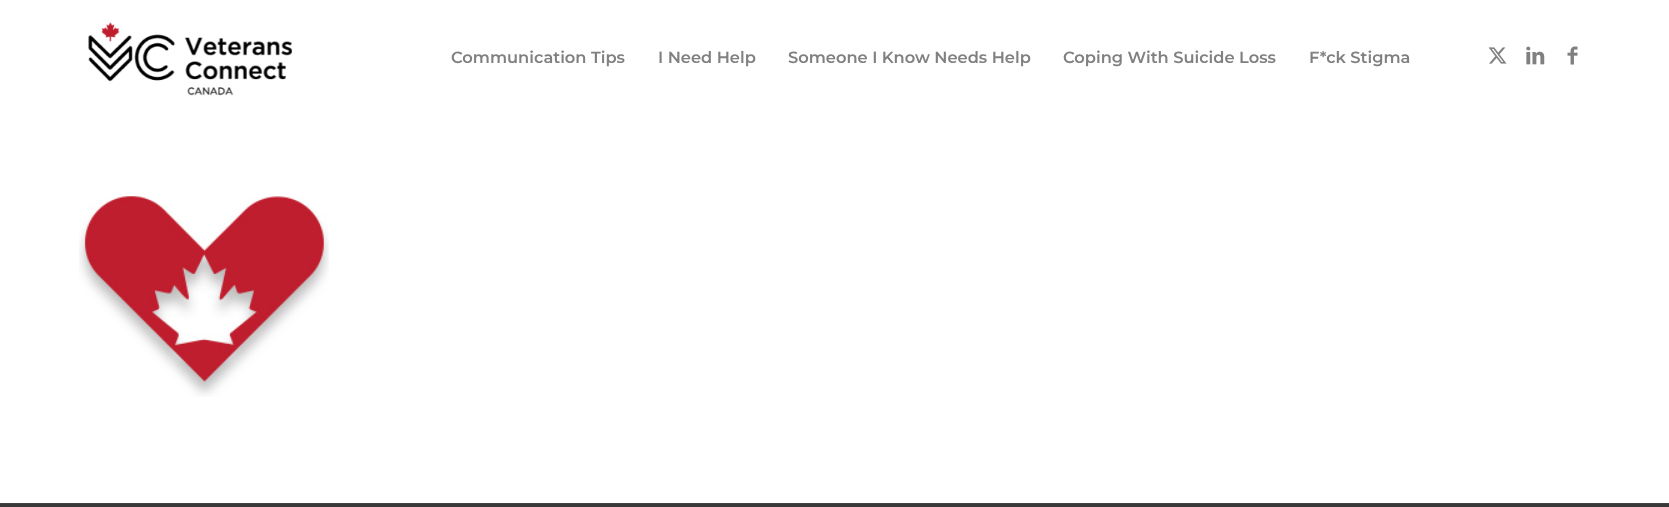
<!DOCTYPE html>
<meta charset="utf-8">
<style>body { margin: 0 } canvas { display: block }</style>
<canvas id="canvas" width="1669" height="507"></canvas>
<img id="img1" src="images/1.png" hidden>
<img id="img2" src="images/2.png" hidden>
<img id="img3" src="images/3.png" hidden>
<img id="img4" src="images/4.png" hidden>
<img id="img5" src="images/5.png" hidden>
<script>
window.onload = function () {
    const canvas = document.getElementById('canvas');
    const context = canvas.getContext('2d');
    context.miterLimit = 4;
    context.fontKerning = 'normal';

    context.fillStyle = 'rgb(255, 255, 255)';
    context.fillRect(0, 0, 1669, 507);
    context.drawImage(document.getElementById('img1'), 88, 22, 205, 74);
    context.drawImage(document.getElementById('img2'), 1488, 47, 19, 17);
    context.drawImage(document.getElementById('img3'), 1526, 46, 19, 19);
    context.drawImage(document.getElementById('img4'), 1567, 46, 11, 19);
    context.drawImage(document.getElementById('img5'), 79, 196, 250, 201);
    context.fillStyle = 'rgb(57, 57, 57)';
    context.fillRect(0, 504, 1669, 3);
    context.fillStyle = 'rgb(68, 68, 68)';
    context.fillRect(0, 503, 1669, 1);
    context.font = '600 16.25px Montserrat';
    context.fillStyle = 'rgb(128, 128, 128)';
    context.fillText('Communication Tips', 451, 63);
    context.fillText('I Need Help', 658, 63);
    context.fillText('Someone I Know Needs Help', 788, 63);
    context.fillText('Coping With Suicide Loss', 1063, 63);
    context.fillText('F*ck Stigma', 1309, 63);
};
</script>
